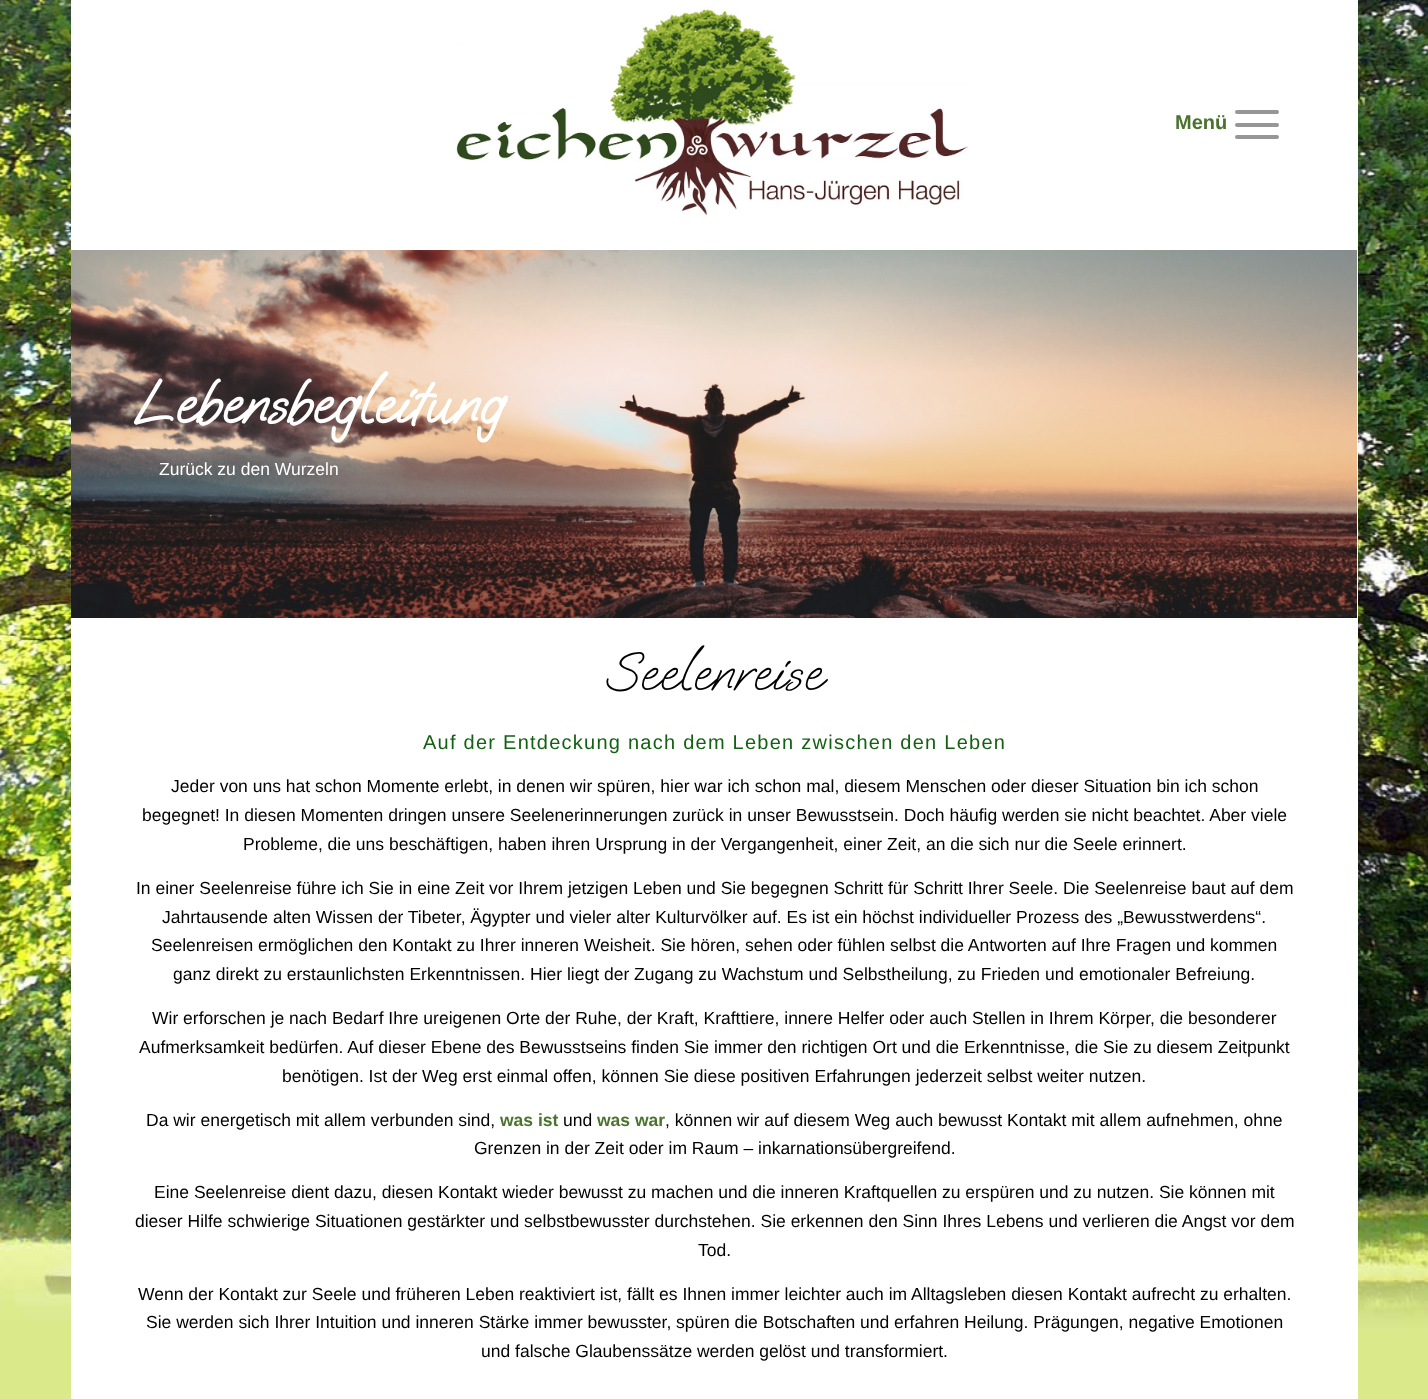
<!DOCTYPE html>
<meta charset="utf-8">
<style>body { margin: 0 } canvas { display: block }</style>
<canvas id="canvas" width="1428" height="1399"></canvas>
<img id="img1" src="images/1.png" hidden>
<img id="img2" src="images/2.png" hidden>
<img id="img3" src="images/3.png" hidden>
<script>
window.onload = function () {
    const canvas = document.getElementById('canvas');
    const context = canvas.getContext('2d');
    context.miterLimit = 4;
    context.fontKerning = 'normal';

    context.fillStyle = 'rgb(255, 255, 255)';
    context.fillRect(0, 0, 1428, 1399);
    context.drawImage(document.getElementById('img1'), 0, 0, 1428, 1399);
    context.fillRect(71, 0, 1287, 1399);
    context.drawImage(document.getElementById('img2'), 456, 6, 513, 210);
    context.fillStyle = 'rgb(150, 150, 150)';
    context.beginPath();
    context.roundRect(1235, 123, 44, 4, 2);
    context.fill();
    context.beginPath();
    context.roundRect(1235, 110, 44, 4, 2);
    context.fill();
    context.beginPath();
    context.roundRect(1235, 135, 44, 4, 2);
    context.fill();
    context.drawImage(document.getElementById('img3'), 71, 250, 1286, 368);
    context.font = 'bold 20px Liberation Sans';
    context.fillStyle = 'rgb(75, 115, 45)';
    context.fillText('Menü', 1175, 129);
    context.font = 'bold 62.5px Oooh Baby';
    context.fillStyle = 'rgb(255, 255, 255)';
    context.fillText('Lebensbegleitung', 134, 422);
    context.font = '17.5px Liberation Sans';
    context.fillText('Zurück zu den Wurzeln', 159, 475);
    context.font = '56px Oooh Baby';
    context.fillStyle = 'rgb(0, 0, 0)';
    context.fillText('Seelenreise', 606, 689);
    context.letterSpacing = '1.25px';
    context.font = '20px Liberation Sans';
    context.fillStyle = 'rgb(19, 97, 19)';
    context.fillText('Auf der Entdeckung nach dem Leben zwischen den Leben', 423, 749);
    context.letterSpacing = '0px';
    context.font = '17.5px Liberation Sans';
    context.fillStyle = 'rgb(0, 0, 0)';
    context.fillText('Jeder von uns hat schon Momente erlebt, in denen wir spüren, hier war ich schon mal, diesem Menschen oder dieser Situation bin ich schon', 171, 792);
    context.fillText('begegnet! In diesen Momenten dringen unsere Seelenerinnerungen zurück in unser Bewusstsein. Doch häufig werden sie nicht beachtet. Aber viele', 142, 821);
    context.fillText('Probleme, die uns beschäftigen, haben ihren Ursprung in der Vergangenheit, einer Zeit, an die sich nur die Seele erinnert.', 243, 850);
    context.fillText('In einer Seelenreise führe ich Sie in eine Zeit vor Ihrem jetzigen Leben und Sie begegnen Schritt für Schritt Ihrer Seele. Die Seelenreise baut auf dem', 136, 894);
    context.fillText('Jahrtausende alten Wissen der Tibeter, Ägypter und vieler alter Kulturvölker auf. Es ist ein höchst individueller Prozess des „Bewusstwerdens“.', 162, 923);
    context.fillText('Seelenreisen ermöglichen den Kontakt zu Ihrer inneren Weisheit. Sie hören, sehen oder fühlen selbst die Antworten auf Ihre Fragen und kommen', 151, 951);
    context.fillText('ganz direkt zu erstaunlichsten Erkenntnissen. Hier liegt der Zugang zu Wachstum und Selbstheilung, zu Frieden und emotionaler Befreiung.', 173, 980);
    context.fillText('Wir erforschen je nach Bedarf Ihre ureigenen Orte der Ruhe, der Kraft, Krafttiere, innere Helfer oder auch Stellen in Ihrem Körper, die besonderer', 152, 1024);
    context.fillText('Aufmerksamkeit bedürfen. Auf dieser Ebene des Bewusstseins finden Sie immer den richtigen Ort und die Erkenntnisse, die Sie zu diesem Zeitpunkt', 139, 1053);
    context.fillText('benötigen. Ist der Weg erst einmal offen, können Sie diese positiven Erfahrungen jederzeit selbst weiter nutzen.', 282, 1082);
    context.fillText('Da wir energetisch mit allem verbunden sind,', 146, 1126);
    context.font = 'bold 17.5px Liberation Sans';
    context.fillStyle = 'rgb(75, 115, 45)';
    context.fillText('was ist', 500, 1126);
    context.font = '17.5px Liberation Sans';
    context.fillStyle = 'rgb(0, 0, 0)';
    context.fillText('und', 563, 1126);
    context.font = 'bold 17.5px Liberation Sans';
    context.fillStyle = 'rgb(75, 115, 45)';
    context.fillText('was war', 597, 1126);
    context.font = '17.5px Liberation Sans';
    context.fillStyle = 'rgb(0, 0, 0)';
    context.fillText(', können wir auf diesem Weg auch bewusst Kontakt mit allem aufnehmen, ohne', 665, 1126);
    context.fillText('Grenzen in der Zeit oder im Raum – inkarnationsübergreifend.', 474, 1154);
    context.fillText('Eine Seelenreise dient dazu, diesen Kontakt wieder bewusst zu machen und die inneren Kraftquellen zu erspüren und zu nutzen. Sie können mit', 154, 1198);
    context.fillText('dieser Hilfe schwierige Situationen gestärkter und selbstbewusster durchstehen. Sie erkennen den Sinn Ihres Lebens und verlieren die Angst vor dem', 135, 1227);
    context.fillText('Tod.', 698, 1256);
    context.fillText('Wenn der Kontakt zur Seele und früheren Leben reaktiviert ist, fällt es Ihnen immer leichter auch im Alltagsleben diesen Kontakt aufrecht zu erhalten.', 138, 1300);
    context.fillText('Sie werden sich Ihrer Intuition und inneren Stärke immer bewusster, spüren die Botschaften und erfahren Heilung. Prägungen, negative Emotionen', 146, 1328);
    context.fillText('und falsche Glaubenssätze werden gelöst und transformiert.', 481, 1357);
};
</script>
